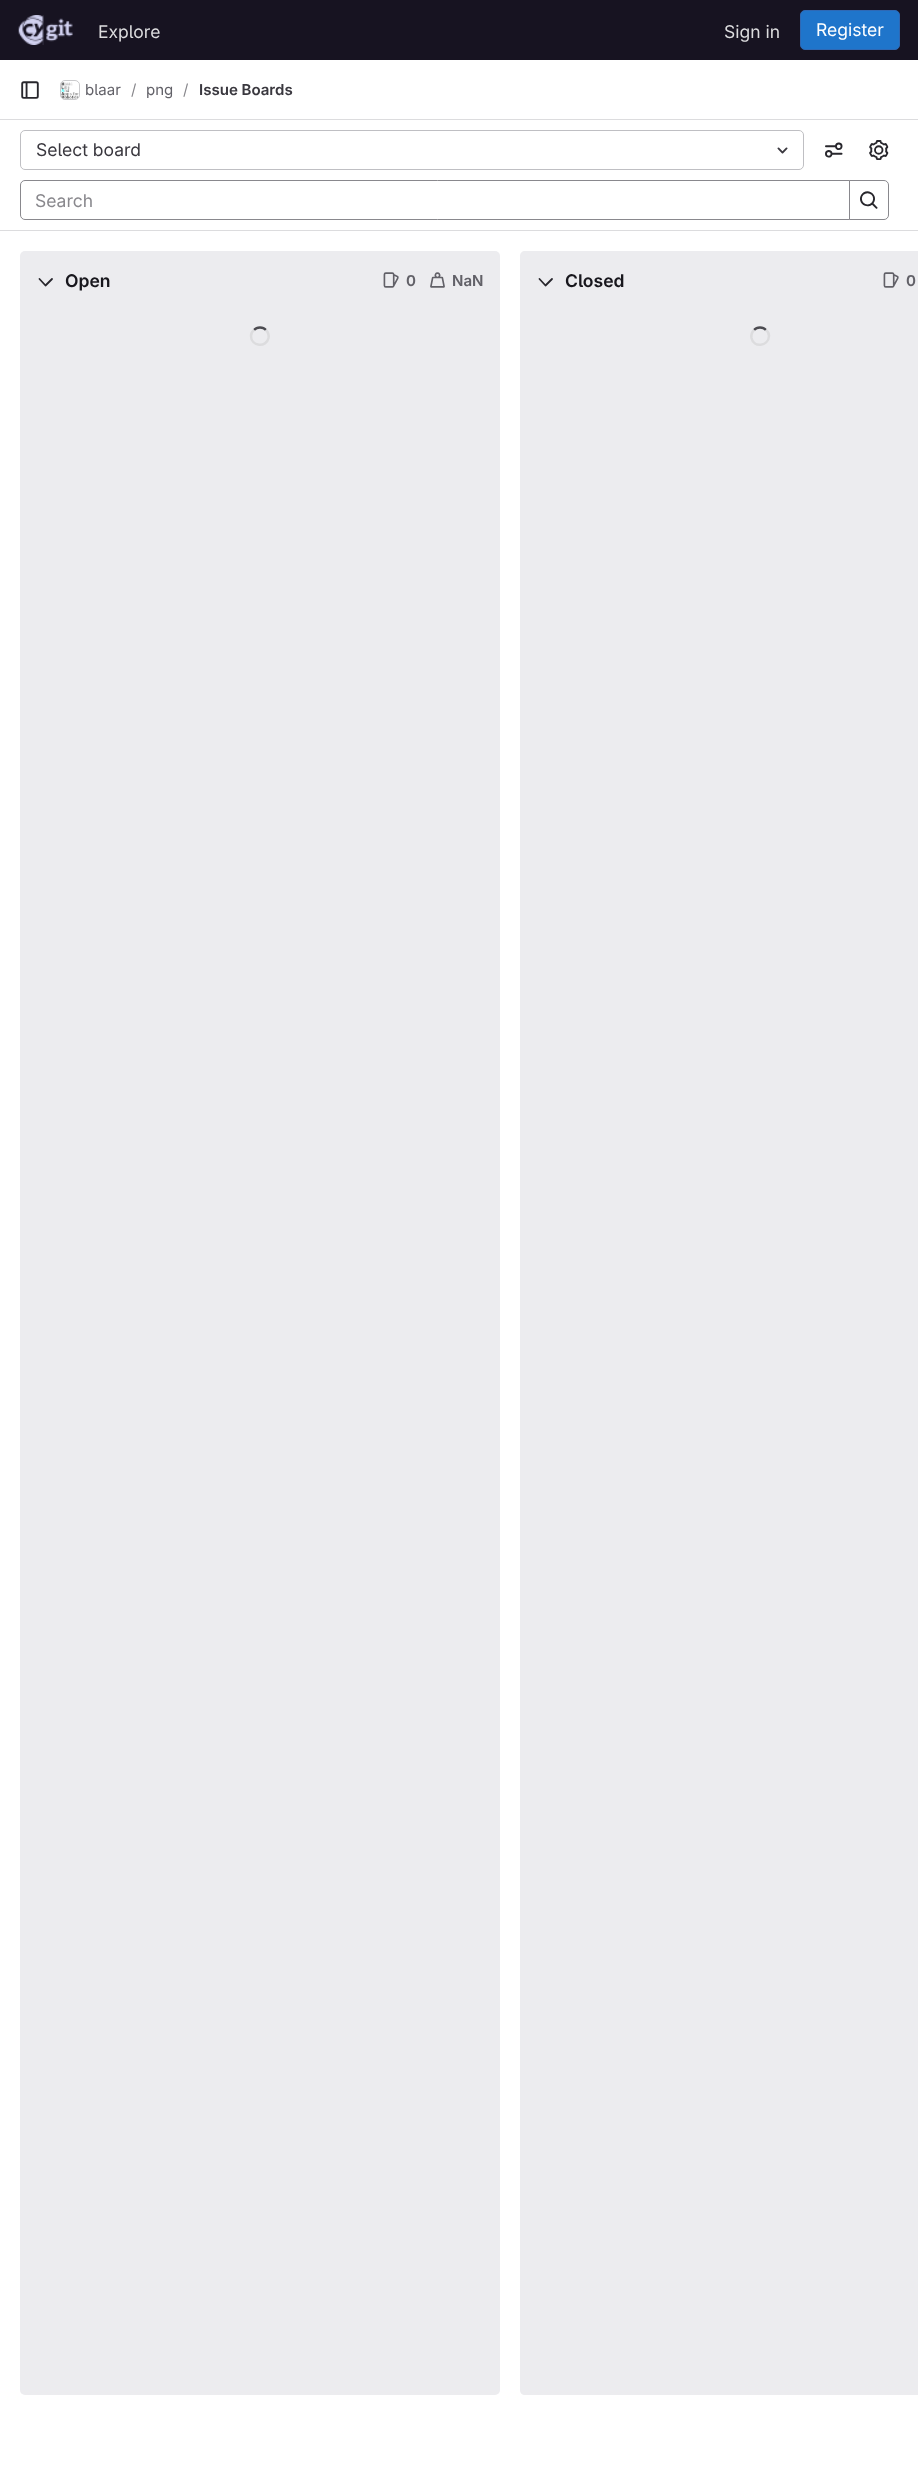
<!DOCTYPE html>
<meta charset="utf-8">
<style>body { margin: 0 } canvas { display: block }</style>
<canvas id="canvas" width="918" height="2475"></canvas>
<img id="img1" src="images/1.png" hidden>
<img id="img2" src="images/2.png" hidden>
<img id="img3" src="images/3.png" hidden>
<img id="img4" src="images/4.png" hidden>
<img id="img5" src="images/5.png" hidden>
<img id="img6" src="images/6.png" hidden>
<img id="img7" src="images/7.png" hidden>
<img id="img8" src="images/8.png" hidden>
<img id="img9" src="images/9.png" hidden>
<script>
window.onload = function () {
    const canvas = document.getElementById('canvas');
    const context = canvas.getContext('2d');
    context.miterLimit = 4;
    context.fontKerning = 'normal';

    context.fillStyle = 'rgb(255, 255, 255)';
    context.fillRect(0, 0, 918, 2475);
    context.fillStyle = 'rgb(23, 19, 33)';
    context.fillRect(0, 0, 918, 60);
    context.drawImage(document.getElementById('img1'), 18, 15, 55, 30);
    context.fillStyle = 'rgb(31, 117, 203)';
    context.beginPath();
    context.roundRect(800.5, 10.5, 99, 39, 4.5);
    context.fill();
    context.strokeStyle = 'rgb(47, 104, 180)';
    context.stroke();
    context.fillStyle = 'rgb(220, 220, 222)';
    context.fillRect(0, 119, 918, 1);
    context.drawImage(document.getElementById('img2'), 21, 81, 18, 18);
    context.beginPath();
    context.roundRect(60.5, 80.5, 19, 19, 4.5);
    context.strokeStyle = 'rgb(220, 220, 222)';
    context.stroke();
    context.drawImage(document.getElementById('img3'), 61, 82, 18, 17);
    context.beginPath();
    context.roundRect(60.5, 80.5, 19, 19, 4.5);
    context.strokeStyle = 'rgba(5, 5, 6, 0.08)';
    context.stroke();
    context.fillRect(0, 230, 918, 1);
    context.beginPath();
    context.roundRect(20.5, 130.5, 783, 39, 4.5);
    context.strokeStyle = 'rgb(191, 191, 195)';
    context.stroke();
    context.drawImage(document.getElementById('img4'), 777, 147, 11, 7);
    context.drawImage(document.getElementById('img5'), 825, 142, 18, 16);
    context.drawImage(document.getElementById('img6'), 869, 140, 20, 20);
    context.beginPath();
    context.roundRect(20.5, 180.5, 829, 39, [4.5, 0, 0, 4.5]);
    context.strokeStyle = 'rgb(137, 136, 141)';
    context.stroke();
    context.fillStyle = 'rgb(255, 255, 255)';
    context.beginPath();
    context.roundRect(849.5, 180.5, 39, 39, [0, 4.5, 4.5, 0]);
    context.fill();
    context.stroke();
    context.drawImage(document.getElementById('img7'), 860, 191, 18, 18);
    context.fillStyle = 'rgb(236, 236, 239)';
    context.beginPath();
    context.roundRect(20, 251, 480, 2144, 5);
    context.fill();
    context.beginPath();
    context.moveTo(39.5, 279);
    context.lineTo(45.5, 285.5);
    context.lineTo(52, 279);
    context.strokeStyle = 'rgb(40, 39, 45)';
    context.lineWidth = 1.8;
    context.lineCap = 'round';
    context.lineJoin = 'round';
    context.stroke();
    context.drawImage(document.getElementById('img8'), 383, 272, 16, 16);
    context.drawImage(document.getElementById('img9'), 430, 272, 15, 16);
    context.beginPath();
    context.moveTo(254, 330);
    context.bezierCurveTo(257, 326.5, 263, 326.5, 266, 330);
    context.strokeStyle = 'rgb(76, 75, 81)';
    context.lineWidth = 2.5;
    context.lineCap = 'butt';
    context.lineJoin = 'miter';
    context.stroke();
    context.beginPath();
    context.moveTo(266, 330);
    context.bezierCurveTo(268, 332, 269, 335, 268.5, 338);
    context.bezierCurveTo(266.5, 348, 251, 346.5, 251, 336);
    context.bezierCurveTo(251, 334, 252, 331.5, 254, 330);
    context.strokeStyle = 'rgb(220, 220, 222)';
    context.stroke();
    context.beginPath();
    context.moveTo(525, 251);
    context.lineTo(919, 251);
    context.lineTo(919, 2395);
    context.lineTo(525, 2395);
    context.bezierCurveTo(522, 2395, 520, 2393, 520, 2390);
    context.lineTo(520, 256);
    context.bezierCurveTo(520, 253, 522, 251, 525, 251);
    context.closePath();
    context.fill();
    context.beginPath();
    context.moveTo(539.5, 279);
    context.lineTo(545.5, 285.5);
    context.lineTo(552, 279);
    context.strokeStyle = 'rgb(40, 39, 45)';
    context.lineWidth = 1.8;
    context.lineCap = 'round';
    context.lineJoin = 'round';
    context.stroke();
    context.drawImage(document.getElementById('img8'), 883, 272, 16, 16);
    context.beginPath();
    context.moveTo(754, 330);
    context.bezierCurveTo(757, 326.5, 763, 326.5, 766, 330);
    context.strokeStyle = 'rgb(76, 75, 81)';
    context.lineWidth = 2.5;
    context.lineCap = 'butt';
    context.lineJoin = 'miter';
    context.stroke();
    context.beginPath();
    context.moveTo(766, 330);
    context.bezierCurveTo(768, 331.5, 769, 334, 769, 336);
    context.bezierCurveTo(768.5, 346.5, 753.5, 348, 751.5, 338);
    context.bezierCurveTo(751, 335, 752, 332, 754, 330);
    context.strokeStyle = 'rgb(220, 220, 222)';
    context.stroke();
    context.font = '17.5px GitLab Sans';
    context.fillStyle = 'rgb(220, 220, 222)';
    context.fillText('Explore', 98, 38);
    context.fillText('Sign in', 724, 38);
    context.fillStyle = 'rgb(255, 255, 255)';
    context.fillText('Register', 816, 36);
    context.font = '15px GitLab Sans';
    context.fillStyle = 'rgb(98, 97, 104)';
    context.fillText('blaar', 85, 95);
    context.fillStyle = 'rgb(137, 136, 141)';
    context.fillText('/', 131, 95);
    context.fillStyle = 'rgb(98, 97, 104)';
    context.fillText('png', 146, 95);
    context.fillStyle = 'rgb(137, 136, 141)';
    context.fillText('/', 183, 95);
    context.font = '600 15px GitLab Sans';
    context.fillStyle = 'rgb(58, 56, 63)';
    context.fillText('Issue Boards', 199, 95);
    context.font = '17.5px GitLab Sans';
    context.fillText('Select board', 36, 156);
    context.fillStyle = 'rgb(137, 136, 141)';
    context.fillText('Search', 35, 207);
    context.font = '600 17.5px GitLab Sans';
    context.fillStyle = 'rgb(24, 23, 29)';
    context.fillText('Open', 65, 287);
    context.font = '600 15px GitLab Sans';
    context.fillStyle = 'rgb(98, 97, 104)';
    context.fillText('0', 406, 286);
    context.fillText('NaN', 452, 286);
    context.font = '600 17.5px GitLab Sans';
    context.fillStyle = 'rgb(24, 23, 29)';
    context.fillText('Closed', 565, 287);
    context.font = '600 15px GitLab Sans';
    context.fillStyle = 'rgb(98, 97, 104)';
    context.fillText('0', 906, 286);
};
</script>
